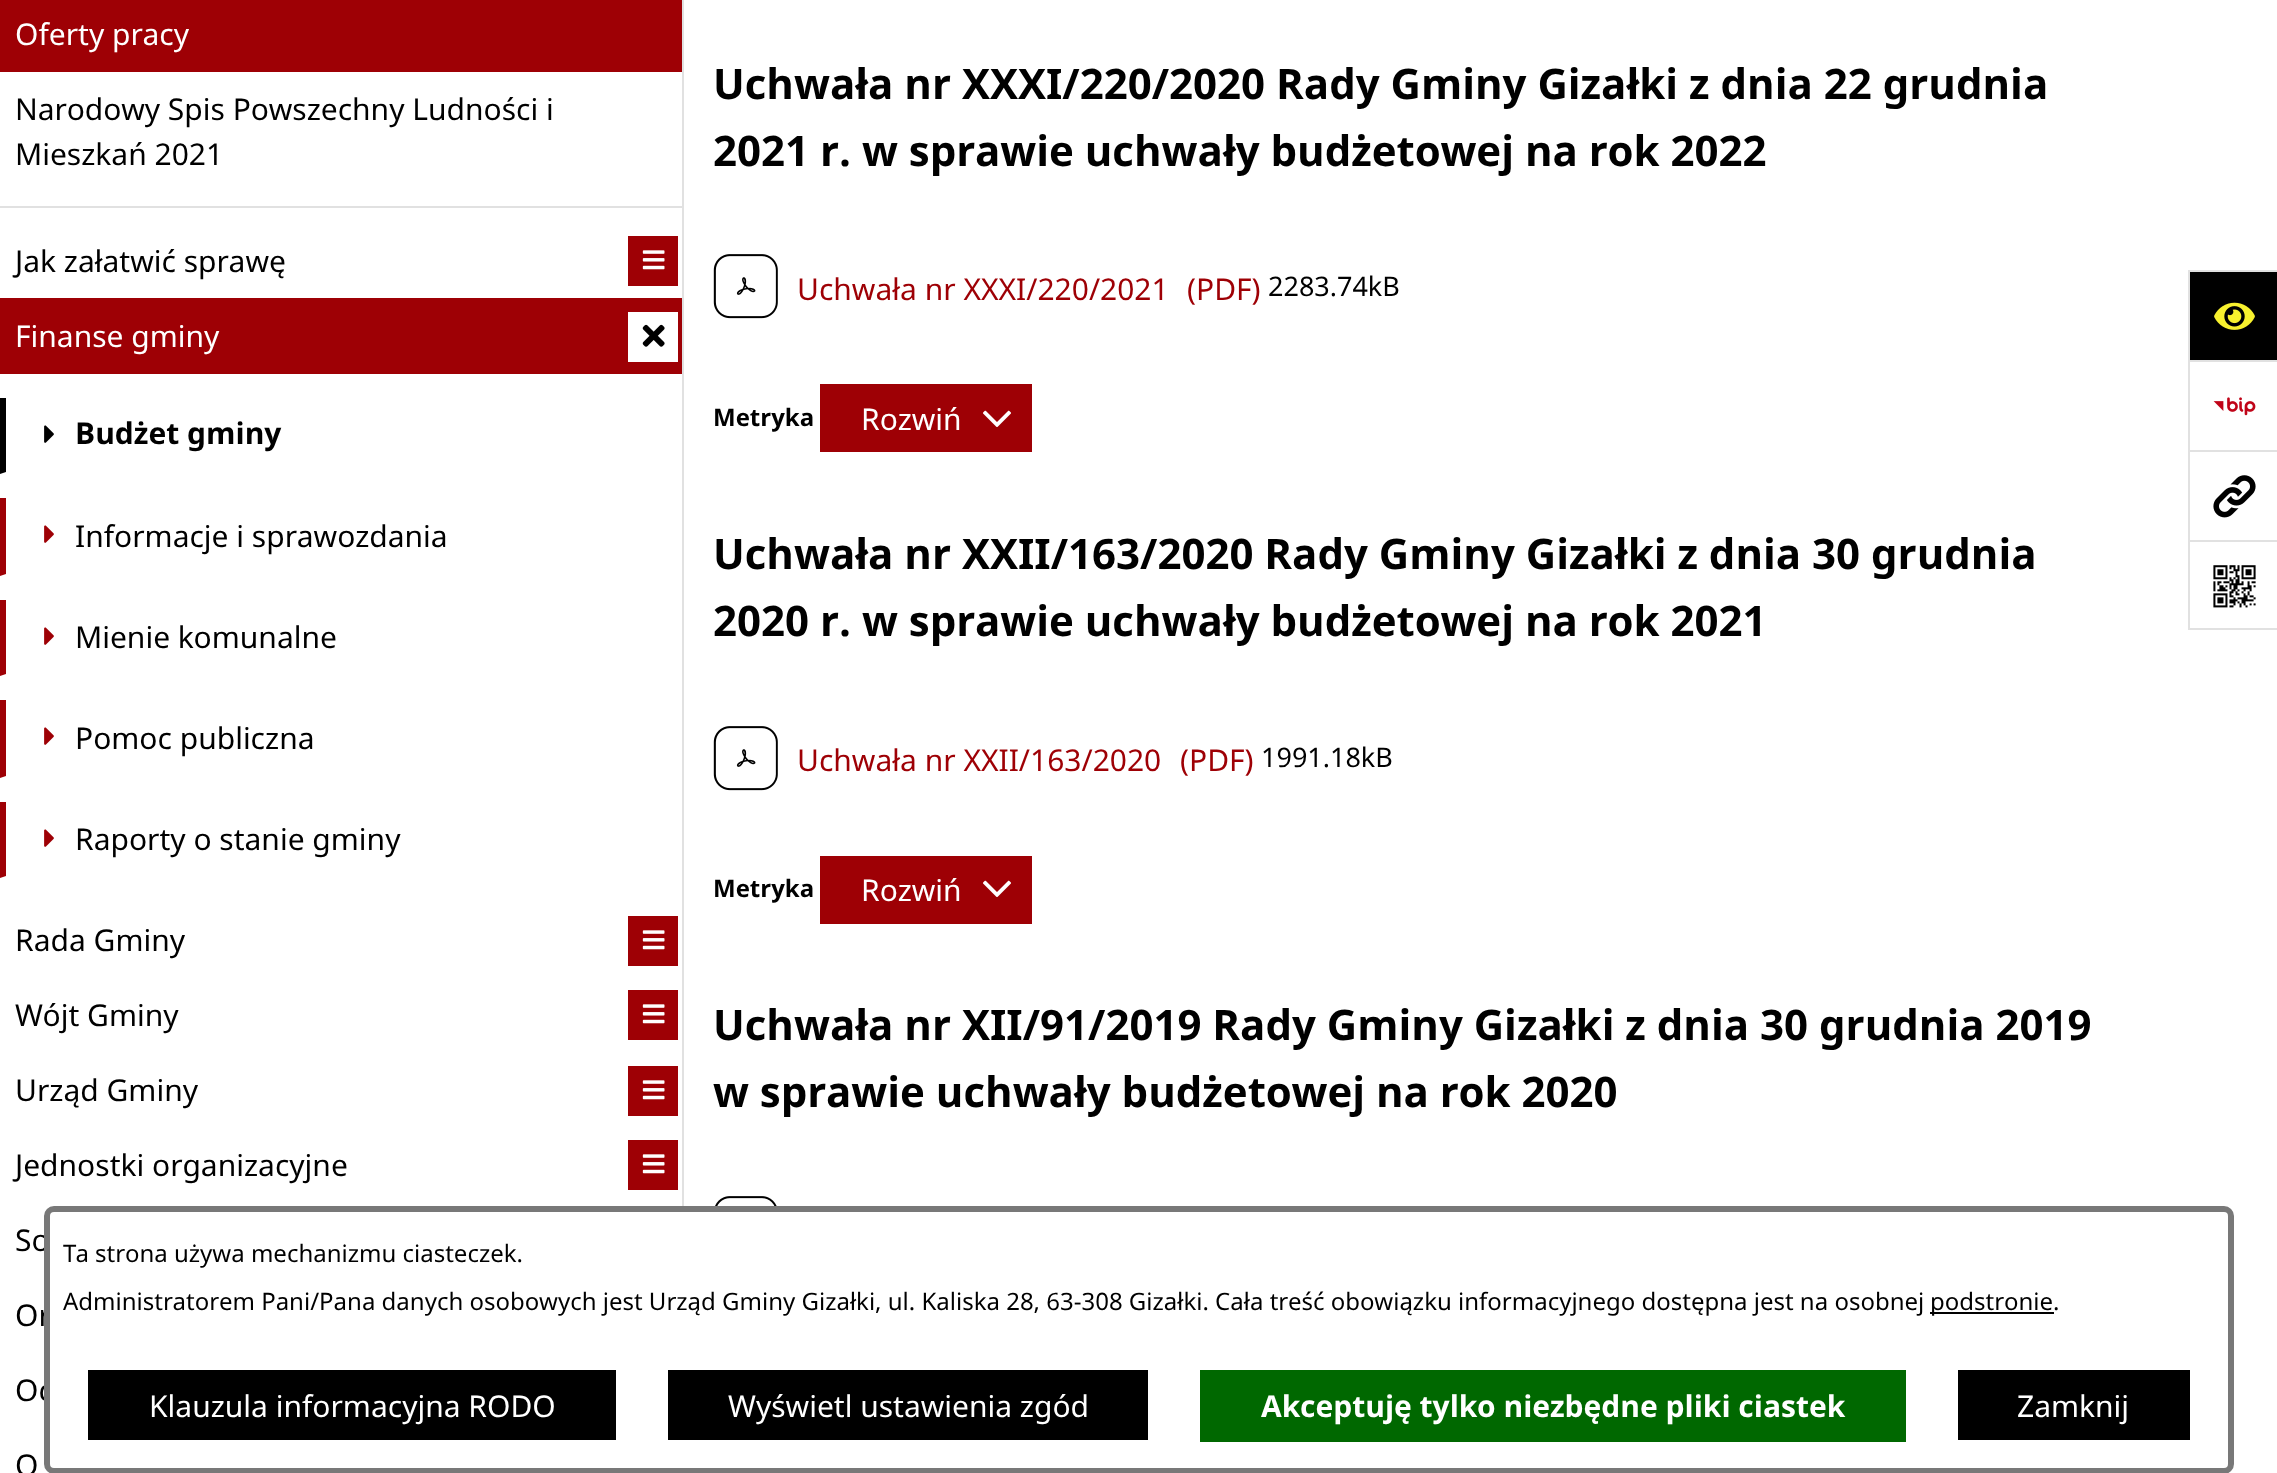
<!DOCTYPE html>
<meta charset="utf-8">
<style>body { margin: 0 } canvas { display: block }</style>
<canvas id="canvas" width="2277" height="1473"></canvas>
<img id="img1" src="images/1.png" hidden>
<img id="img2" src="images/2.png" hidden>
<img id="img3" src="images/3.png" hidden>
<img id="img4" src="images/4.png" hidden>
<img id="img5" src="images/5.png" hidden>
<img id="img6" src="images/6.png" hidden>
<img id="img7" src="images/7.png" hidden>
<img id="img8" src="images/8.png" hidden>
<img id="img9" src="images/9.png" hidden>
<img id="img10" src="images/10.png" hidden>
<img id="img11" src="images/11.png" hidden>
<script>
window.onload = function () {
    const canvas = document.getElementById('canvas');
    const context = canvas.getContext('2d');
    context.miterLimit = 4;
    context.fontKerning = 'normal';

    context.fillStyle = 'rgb(255, 255, 255)';
    context.fillRect(0, 0, 2277, 1473);
    context.fillStyle = 'rgb(158, 0, 5)';
    context.fillRect(0, 0, 682, 72);
    context.fillStyle = 'rgb(225, 225, 225)';
    context.fillRect(0, 206, 684, 2);
    context.fillStyle = 'rgb(158, 0, 5)';
    context.fillRect(628, 236, 50, 50);
    context.drawImage(document.getElementById('img1'), 642, 250, 23, 20);
    context.fillRect(0, 298, 682, 76);
    context.fillStyle = 'rgb(255, 255, 255)';
    context.fillRect(628, 312, 50, 50);
    context.drawImage(document.getElementById('img2'), 642, 324, 23, 23);
    context.fillStyle = 'rgb(0, 0, 0)';
    context.beginPath();
    context.moveTo(0, 474);
    context.lineTo(0, 398);
    context.lineTo(6, 398);
    context.lineTo(6, 472);
    context.closePath();
    context.fill();
    context.drawImage(document.getElementById('img3'), 44, 425, 10, 18);
    context.fillStyle = 'rgb(158, 0, 5)';
    context.beginPath();
    context.moveTo(0, 576);
    context.lineTo(0, 498);
    context.lineTo(6, 498);
    context.lineTo(6, 574);
    context.closePath();
    context.fill();
    context.drawImage(document.getElementById('img4'), 44, 525, 10, 18);
    context.beginPath();
    context.moveTo(0, 676);
    context.lineTo(0, 600);
    context.lineTo(6, 600);
    context.lineTo(6, 674);
    context.closePath();
    context.fill();
    context.drawImage(document.getElementById('img4'), 44, 627, 10, 18);
    context.beginPath();
    context.moveTo(0, 778);
    context.lineTo(0, 700);
    context.lineTo(6, 700);
    context.lineTo(6, 776);
    context.closePath();
    context.fill();
    context.drawImage(document.getElementById('img4'), 44, 727, 10, 18);
    context.beginPath();
    context.moveTo(0, 878);
    context.lineTo(0, 802);
    context.lineTo(6, 802);
    context.lineTo(6, 876);
    context.closePath();
    context.fill();
    context.drawImage(document.getElementById('img4'), 44, 829, 10, 18);
    context.fillRect(628, 916, 50, 50);
    context.drawImage(document.getElementById('img1'), 642, 930, 23, 20);
    context.fillRect(628, 990, 50, 50);
    context.drawImage(document.getElementById('img1'), 642, 1004, 23, 20);
    context.fillRect(628, 1066, 50, 50);
    context.drawImage(document.getElementById('img1'), 642, 1080, 23, 20);
    context.fillRect(628, 1140, 50, 50);
    context.drawImage(document.getElementById('img1'), 642, 1154, 23, 20);
    context.fillStyle = 'rgb(225, 225, 225)';
    context.fillRect(682, 0, 2, 1206);
    context.fillStyle = 'rgb(0, 0, 0)';
    context.fillRect(2190, 272, 87, 88);
    context.fillStyle = 'rgb(225, 225, 225)';
    context.fillRect(2188, 270, 89, 2);
    context.fillRect(2188, 270, 2, 90);
    context.drawImage(document.getElementById('img5'), 2214, 302, 41, 28);
    context.fillRect(2188, 360, 89, 2);
    context.fillRect(2188, 360, 2, 90);
    context.drawImage(document.getElementById('img6'), 2213, 397, 43, 19);
    context.fillRect(2188, 450, 89, 2);
    context.fillRect(2188, 450, 2, 90);
    context.drawImage(document.getElementById('img7'), 2213, 475, 43, 43);
    context.fillRect(2188, 540, 89, 2);
    context.fillRect(2188, 628, 89, 2);
    context.fillRect(2188, 540, 2, 90);
    context.drawImage(document.getElementById('img8'), 2213, 565, 43, 43);
    context.drawImage(document.getElementById('img9'), 713, 254, 65, 65);
    context.fillStyle = 'rgb(158, 0, 5)';
    context.fillRect(820, 384, 212, 68);
    context.drawImage(document.getElementById('img10'), 983, 410, 28, 17);
    context.drawImage(document.getElementById('img9'), 713, 726, 65, 65);
    context.fillRect(820, 856, 212, 68);
    context.drawImage(document.getElementById('img10'), 983, 880, 28, 17);
    context.drawImage(document.getElementById('img11'), 715, 1196, 62, 10);
    context.font = '30px Noto Sans';
    context.fillStyle = 'rgb(255, 255, 255)';
    context.fillText('Oferty pracy', 15, 45);
    context.fillStyle = 'rgb(0, 0, 0)';
    context.fillText('Narodowy Spis Powszechny Ludności i', 15, 120);
    context.fillText('Mieszkań 2021', 15, 165);
    context.fillText('Jak załatwić sprawę', 15, 272);
    context.fillStyle = 'rgb(255, 255, 255)';
    context.fillText('Finanse gminy', 15, 347);
    context.font = 'bold 30px Noto Sans';
    context.fillStyle = 'rgb(0, 0, 0)';
    context.fillText('Budżet gminy', 75, 444);
    context.font = '30px Noto Sans';
    context.fillText('Informacje i sprawozdania', 75, 547);
    context.fillText('Mienie komunalne', 75, 648);
    context.fillText('Pomoc publiczna', 75, 749);
    context.fillText('Raporty o stanie gminy', 75, 850);
    context.fillText('Rada Gminy', 15, 951);
    context.fillText('Wójt Gminy', 15, 1026);
    context.fillText('Urząd Gminy', 15, 1101);
    context.fillText('Jednostki organizacyjne', 15, 1176);
    context.fillText('So', 15, 1251);
    context.fillText('Or', 15, 1326);
    context.fillText('Oc', 15, 1401);
    context.fillText('O', 15, 1476);
    context.font = 'bold 42px Noto Sans';
    context.fillText('Uchwała nr XXXI/220/2020 Rady Gminy Gizałki z dnia 22 grudnia', 713, 99);
    context.fillText('2021 r. w sprawie uchwały budżetowej na rok 2022', 713, 166);
    context.font = '30px Noto Sans';
    context.fillStyle = 'rgb(158, 0, 5)';
    context.fillText('Uchwała nr XXXI/220/2021', 797, 300);
    context.fillText('(PDF)', 1187, 300);
    context.font = '27px Noto Sans';
    context.fillStyle = 'rgb(0, 0, 0)';
    context.fillText('2283.74kB', 1268, 296);
    context.font = 'bold 24px Noto Sans';
    context.fillText('Metryka', 713, 426);
    context.font = '30px Noto Sans';
    context.fillStyle = 'rgb(255, 255, 255)';
    context.fillText('Rozwiń', 861, 430);
    context.font = 'bold 42px Noto Sans';
    context.fillStyle = 'rgb(0, 0, 0)';
    context.fillText('Uchwała nr XXII/163/2020 Rady Gminy Gizałki z dnia 30 grudnia', 713, 569);
    context.fillText('2020 r. w sprawie uchwały budżetowej na rok 2021', 713, 636);
    context.font = '30px Noto Sans';
    context.fillStyle = 'rgb(158, 0, 5)';
    context.fillText('Uchwała nr XXII/163/2020', 797, 771);
    context.fillText('(PDF)', 1180, 771);
    context.font = '27px Noto Sans';
    context.fillStyle = 'rgb(0, 0, 0)';
    context.fillText('1991.18kB', 1261, 767);
    context.font = 'bold 24px Noto Sans';
    context.fillText('Metryka', 713, 897);
    context.font = '30px Noto Sans';
    context.fillStyle = 'rgb(255, 255, 255)';
    context.fillText('Rozwiń', 861, 901);
    context.font = 'bold 42px Noto Sans';
    context.fillStyle = 'rgb(0, 0, 0)';
    context.fillText('Uchwała nr XII/91/2019 Rady Gminy Gizałki z dnia 30 grudnia 2019', 713, 1040);
    context.fillText('w sprawie uchwały budżetowej na rok 2020', 713, 1107);
    context.fillStyle = 'rgb(255, 255, 255)';
    context.beginPath();
    context.roundRect(47, 1209, 2184, 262, 7);
    context.fill();
    context.strokeStyle = 'rgb(120, 120, 120)';
    context.lineWidth = 6;
    context.stroke();
    context.font = '24px Noto Sans';
    context.fillStyle = 'rgb(0, 0, 0)';
    context.fillText('Ta strona używa mechanizmu ciasteczek.', 63, 1262);
    context.fillText('Administratorem Pani/Pana danych osobowych jest Urząd Gminy Gizałki, ul. Kaliska 28, 63-308 Gizałki. Cała treść obowiązku informacyjnego dostępna jest na osobnej', 63, 1310);
    context.fillRect(1930, 1312, 124, 2);
    context.fillText('podstronie.', 1930, 1310);
    context.fillRect(88, 1370, 528, 70);
    context.font = '30px Noto Sans';
    context.fillStyle = 'rgb(255, 255, 255)';
    context.fillText('Klauzula informacyjna RODO', 149, 1417);
    context.fillStyle = 'rgb(0, 0, 0)';
    context.fillRect(668, 1370, 480, 70);
    context.fillStyle = 'rgb(255, 255, 255)';
    context.fillText('Wyświetl ustawienia zgód', 728, 1417);
    context.fillStyle = 'rgb(0, 104, 0)';
    context.fillRect(1200, 1370, 706, 72);
    context.font = 'bold 30px Noto Sans';
    context.fillStyle = 'rgb(255, 255, 255)';
    context.fillText('Akceptuję tylko niezbędne pliki ciastek', 1261, 1417);
    context.fillStyle = 'rgb(0, 0, 0)';
    context.fillRect(1958, 1370, 232, 70);
    context.font = '30px Noto Sans';
    context.fillStyle = 'rgb(255, 255, 255)';
    context.fillText('Zamknij', 2017, 1417);
};
</script>
